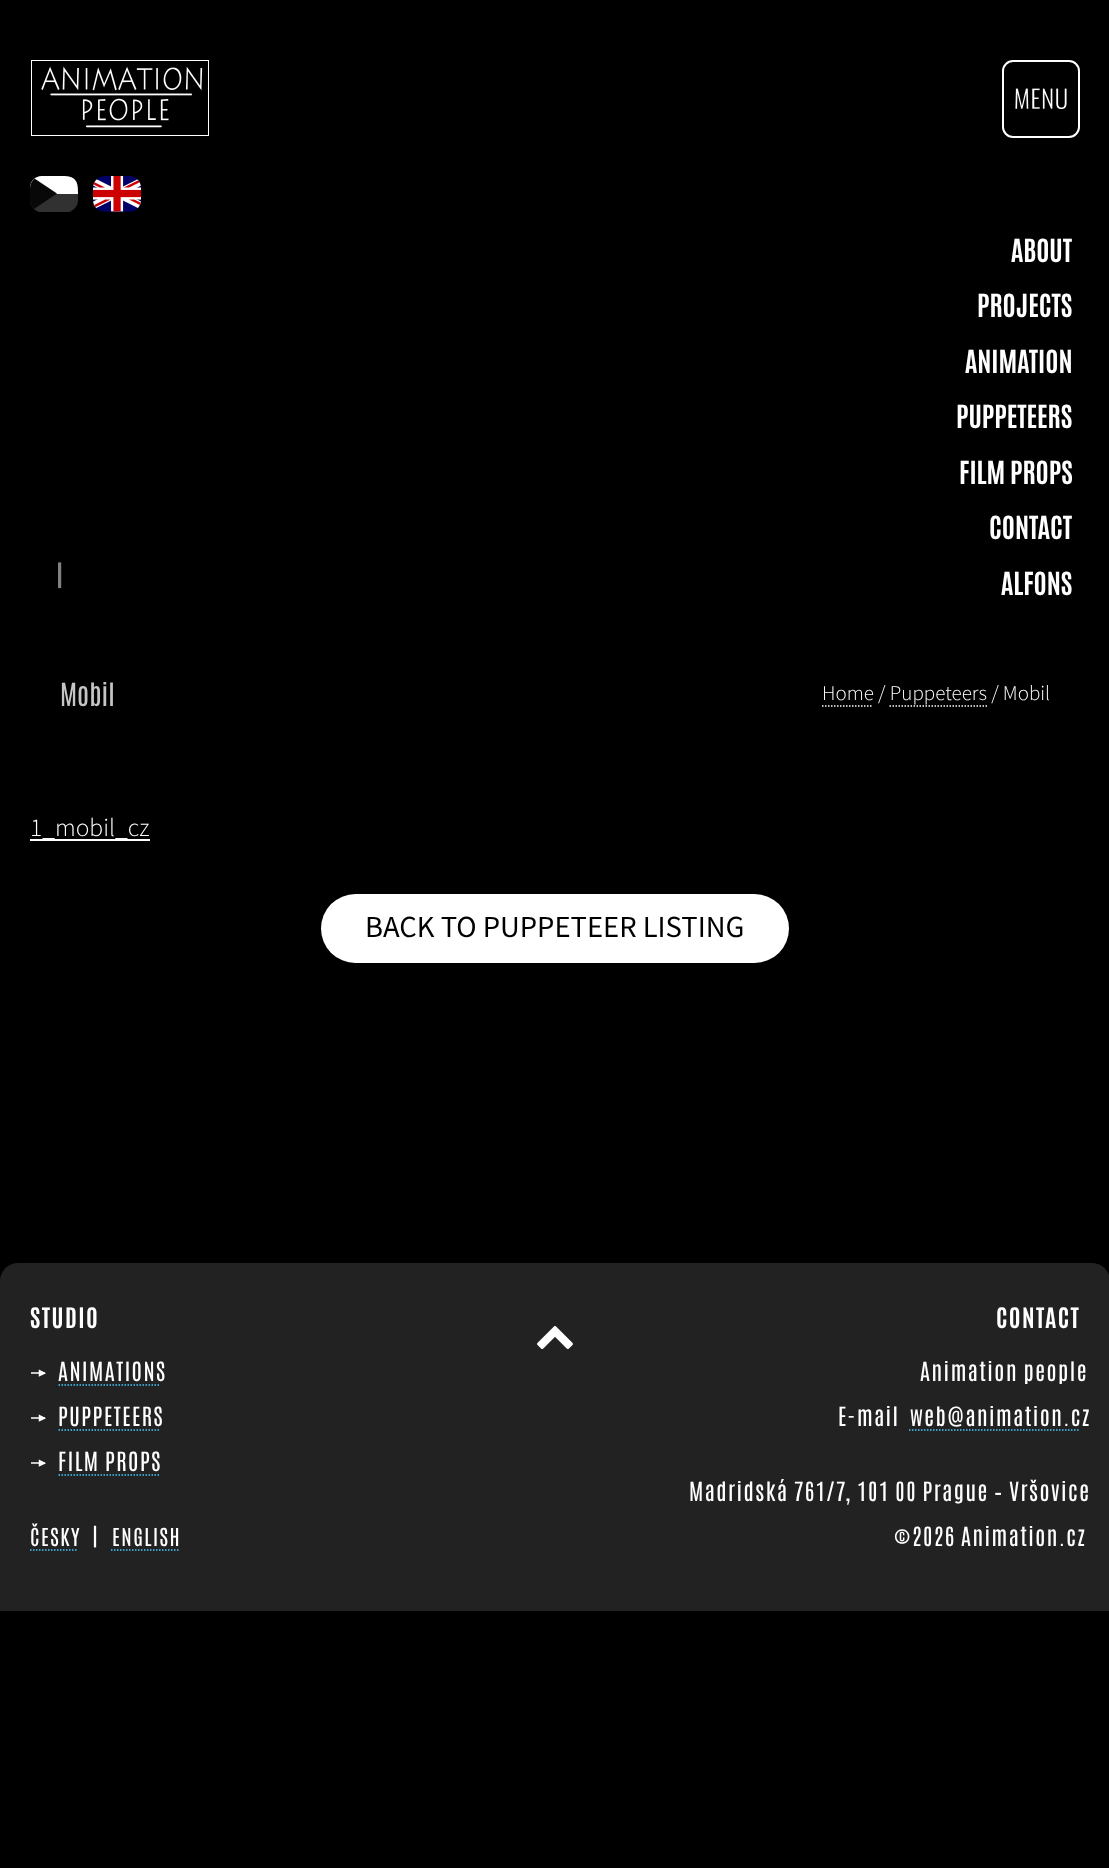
<!DOCTYPE html>
<meta charset="utf-8">
<style>body { margin: 0 } canvas { display: block }</style>
<canvas id="canvas" width="1109" height="1868"></canvas>
<img id="img1" src="images/1.png" hidden>
<img id="img2" src="images/2.png" hidden>
<img id="img3" src="images/3.png" hidden>
<img id="img4" src="images/4.png" hidden>
<img id="img5" src="images/5.png" hidden>
<script>
window.onload = function () {
    const canvas = document.getElementById('canvas');
    const context = canvas.getContext('2d');
    context.miterLimit = 4;
    context.fontKerning = 'normal';

    context.fillStyle = 'rgb(0, 0, 0)';
    context.fillRect(0, 0, 1109, 1868);
    context.drawImage(document.getElementById('img1'), 31, 60, 178, 76);
    context.drawImage(document.getElementById('img2'), 1015, 88, 52, 21);
    context.beginPath();
    context.roundRect(1003, 61, 76, 76, 10);
    context.strokeStyle = 'rgb(255, 255, 255)';
    context.lineWidth = 2;
    context.stroke();
    context.fillStyle = 'rgb(49, 49, 49)';
    context.beginPath();
    context.moveTo(42, 176);
    context.lineTo(66, 176);
    context.bezierCurveTo(73, 176, 78, 181, 78, 188);
    context.lineTo(78, 200);
    context.bezierCurveTo(78, 206, 74, 210, 69, 212);
    context.lineTo(39, 212);
    context.bezierCurveTo(34, 210, 30, 206, 30, 200);
    context.lineTo(30, 188);
    context.bezierCurveTo(30, 181, 35, 176, 42, 176);
    context.closePath();
    context.fill();
    context.fillStyle = 'rgb(255, 255, 255)';
    context.beginPath();
    context.moveTo(42, 176);
    context.lineTo(62, 176);
    context.bezierCurveTo(76, 176, 78, 181, 78, 194);
    context.lineTo(30, 194);
    context.lineTo(30, 188);
    context.bezierCurveTo(30, 181, 35, 176, 42, 176);
    context.closePath();
    context.fill();
    context.fillStyle = 'rgb(8, 8, 8)';
    context.beginPath();
    context.moveTo(30, 188);
    context.bezierCurveTo(30, 184, 32, 181, 34.5, 178.5);
    context.lineTo(57, 193.5);
    context.lineTo(34, 209);
    context.bezierCurveTo(31.5, 206.5, 30, 203.5, 30, 200);
    context.closePath();
    context.fill();
    context.drawImage(document.getElementById('img3'), 93, 176, 48, 36);
    context.beginPath();
    context.moveTo(822, 706);
    context.lineTo(873, 706);
    context.lineWidth = 1.5;
    context.setLineDash([1.5, 1.5]);
    context.stroke();
    context.beginPath();
    context.moveTo(889.5, 706);
    context.lineTo(987, 706);
    context.stroke();
    context.fillStyle = 'rgb(255, 255, 255)';
    context.fillRect(30, 839, 120, 2);
    context.beginPath();
    context.roundRect(321, 894, 468, 69, 34.5);
    context.fill();
    context.fillStyle = 'rgb(34, 34, 34)';
    context.beginPath();
    context.moveTo(18, 1263);
    context.lineTo(1092, 1263);
    context.bezierCurveTo(1102, 1263, 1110, 1271, 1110, 1281);
    context.lineTo(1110, 1611);
    context.lineTo(0, 1611);
    context.lineTo(0, 1281);
    context.bezierCurveTo(0, 1271, 8, 1263, 18, 1263);
    context.closePath();
    context.fill();
    context.drawImage(document.getElementById('img4'), 31, 1369, 15, 8);
    context.beginPath();
    context.moveTo(58.5, 1385);
    context.lineTo(160.5, 1385);
    context.strokeStyle = 'rgb(68, 202, 255)';
    context.stroke();
    context.drawImage(document.getElementById('img4'), 31, 1414, 15, 8);
    context.beginPath();
    context.moveTo(58.5, 1430);
    context.lineTo(159, 1430);
    context.stroke();
    context.drawImage(document.getElementById('img4'), 31, 1459, 15, 8);
    context.beginPath();
    context.moveTo(58.5, 1475);
    context.lineTo(159, 1475);
    context.stroke();
    context.beginPath();
    context.moveTo(30, 1550);
    context.lineTo(78, 1550);
    context.stroke();
    context.beginPath();
    context.moveTo(111, 1550);
    context.lineTo(178.5, 1550);
    context.stroke();
    context.beginPath();
    context.moveTo(909, 1430);
    context.lineTo(1080, 1430);
    context.stroke();
    context.drawImage(document.getElementById('img5'), 537, 1326, 36, 23);
    context.font = 'bold 27px Antonio';
    context.fillStyle = 'rgb(255, 255, 255)';
    context.fillText('ABOUT', 1011, 262);
    context.fillText('PROJECTS', 977, 317);
    context.fillText('ANIMATION', 965, 373);
    context.fillText('PUPPETEERS', 956, 428);
    context.fillText('FILM PROPS', 959, 484);
    context.fillText('CONTACT', 989, 539);
    context.fillStyle = 'rgb(129, 129, 129)';
    context.fillText('|', 56, 587);
    context.fillStyle = 'rgb(255, 255, 255)';
    context.fillText('ALFONS', 1001, 595);
    context.font = '27px Antonio';
    context.fillStyle = 'rgb(197, 197, 197)';
    context.fillText('Mobil', 60, 706);
    context.font = '300 21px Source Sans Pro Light';
    context.fillStyle = 'rgb(255, 255, 255)';
    context.fillText('Home / Puppeteers / Mobil', 822, 700);
    context.font = '300 25.5px Source Sans Pro Light';
    context.fillText('1_mobil_cz', 30, 836);
    context.font = '30.6px Source Sans Pro';
    context.fillStyle = 'rgb(0, 0, 0)';
    context.fillText('BACK TO PUPPETEER LISTING', 365, 937);
    context.letterSpacing = '1.5px';
    context.font = 'bold 24px Antonio';
    context.fillStyle = 'rgb(255, 255, 255)';
    context.fillText('STUDIO', 30, 1328);
    context.font = '22.5px Antonio';
    context.fillText('ANIMATIONS', 58, 1381);
    context.fillText('PUPPETEERS', 58, 1426);
    context.wordSpacing = '-1.5px';
    context.fillText('FILM PROPS', 58, 1471);
    context.wordSpacing = '0px';
    context.font = '21px Antonio';
    context.fillText('ČESKY', 30, 1546);
    context.font = '22.5px Antonio';
    context.fillText('|', 92, 1546);
    context.font = '21px Antonio';
    context.fillText('ENGLISH', 112, 1546);
    context.font = 'bold 24px Antonio';
    context.fillText('CONTACT', 996, 1328);
    context.wordSpacing = '-1.5px';
    context.font = '22.5px Antonio';
    context.fillText('Animation people', 920, 1381);
    context.wordSpacing = '0px';
    context.fillText('E-mail', 838, 1426);
    context.fillText('web@animation.cz', 910, 1426);
    context.wordSpacing = '-1.5px';
    context.fillText('Madridská 761/7, 101 00 Prague – Vršovice', 689, 1501);
    context.wordSpacing = '0px';
    context.fillText('©', 894, 1546);
    context.wordSpacing = '-1.5px';
    context.fillText('2026 Animation.cz', 912, 1546);
};
</script>
